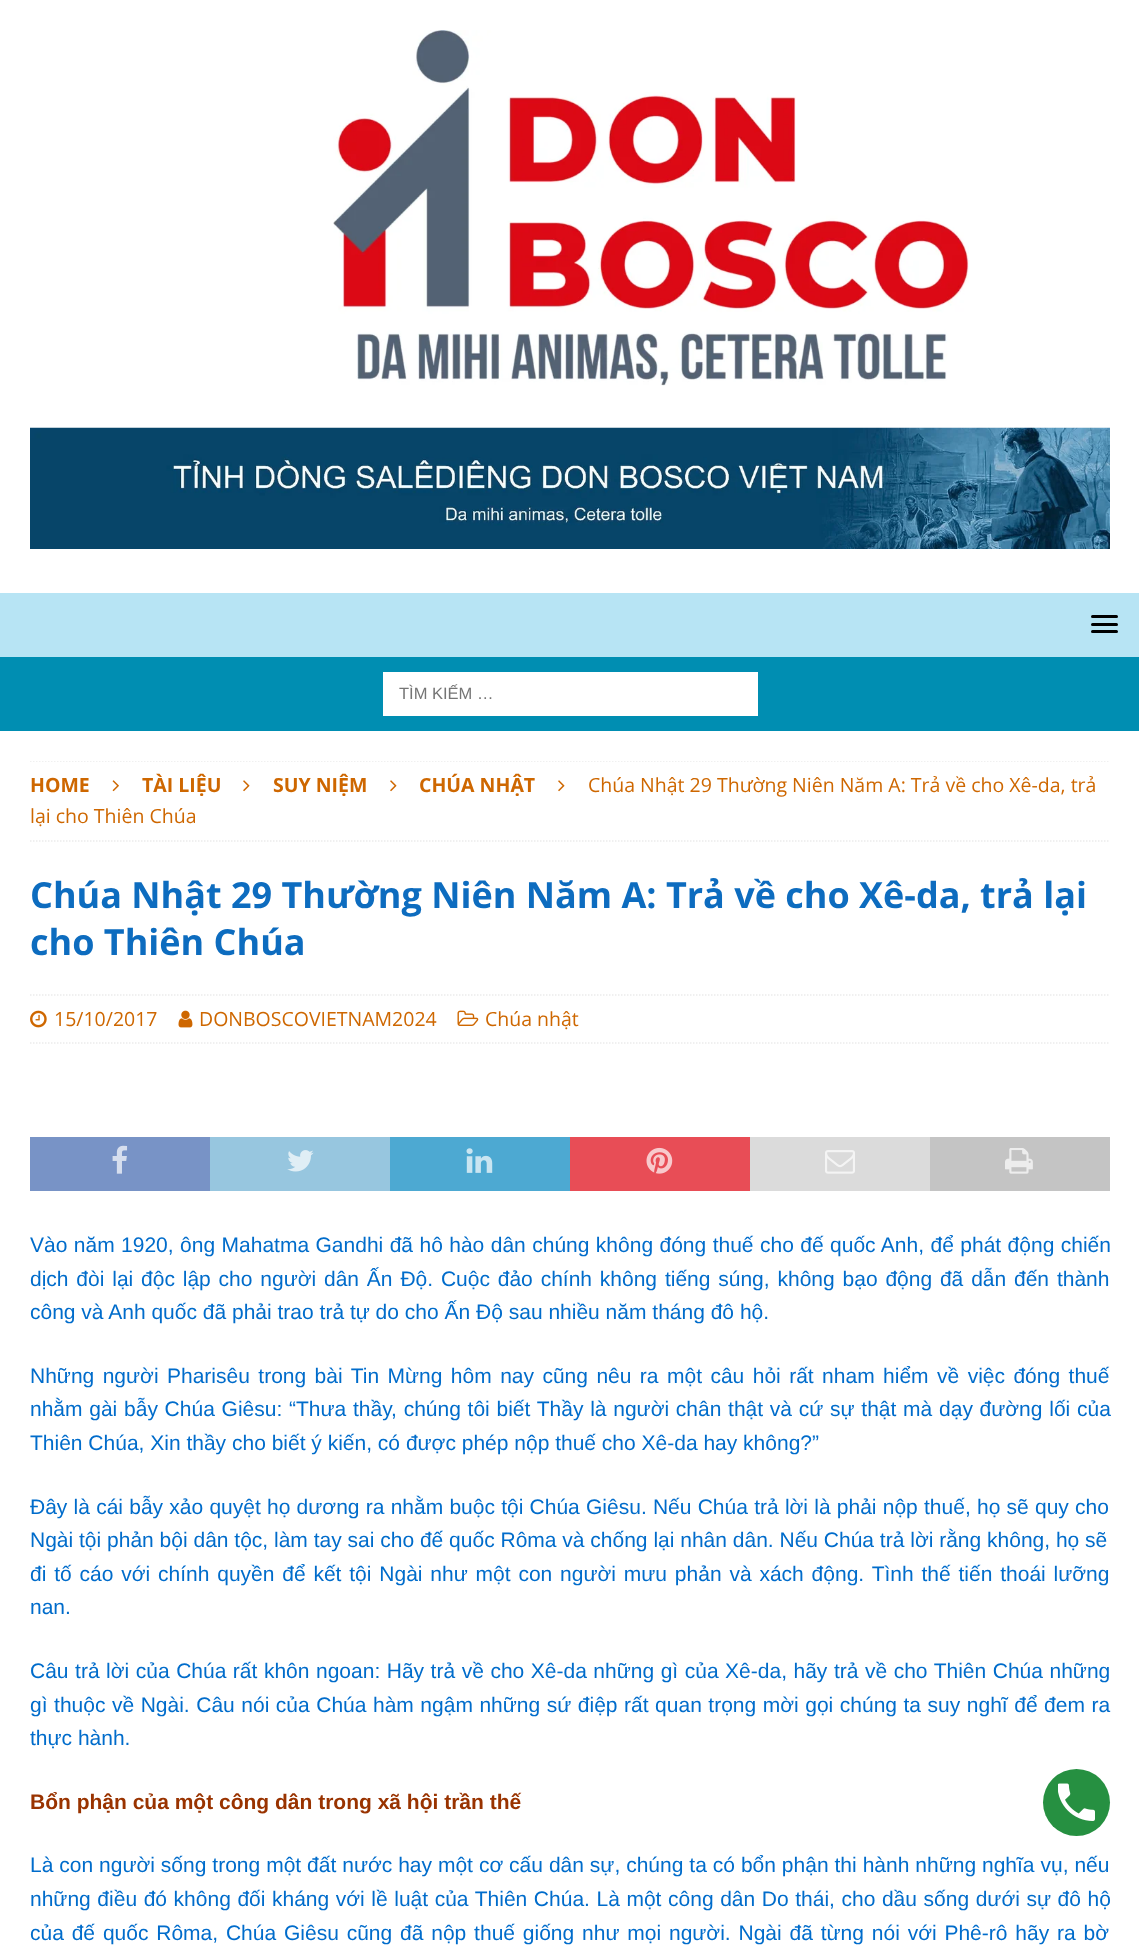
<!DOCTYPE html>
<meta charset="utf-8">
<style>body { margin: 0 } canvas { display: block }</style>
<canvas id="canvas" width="1139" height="1955"></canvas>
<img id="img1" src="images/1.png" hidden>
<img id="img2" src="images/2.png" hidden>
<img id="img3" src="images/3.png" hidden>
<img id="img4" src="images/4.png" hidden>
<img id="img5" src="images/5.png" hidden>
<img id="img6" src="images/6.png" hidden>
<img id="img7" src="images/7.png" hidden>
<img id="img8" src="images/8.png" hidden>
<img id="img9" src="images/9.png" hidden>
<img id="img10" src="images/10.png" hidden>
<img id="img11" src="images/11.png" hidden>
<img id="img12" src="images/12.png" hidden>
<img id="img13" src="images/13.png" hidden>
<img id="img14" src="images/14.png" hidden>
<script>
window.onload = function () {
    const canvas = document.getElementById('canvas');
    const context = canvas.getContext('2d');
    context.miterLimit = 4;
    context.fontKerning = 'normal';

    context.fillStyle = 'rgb(255, 255, 255)';
    context.fillRect(0, 0, 1139, 1955);
    context.drawImage(document.getElementById('img1'), 333, 30, 636, 356);
    context.drawImage(document.getElementById('img2'), 30, 427, 1080, 122);
    context.fillStyle = 'rgb(183, 228, 244)';
    context.fillRect(0, 593, 1139, 64);
    context.fillStyle = 'rgb(0, 0, 0)';
    context.beginPath();
    context.roundRect(1091, 615, 27, 3, 1.5);
    context.fill();
    context.beginPath();
    context.roundRect(1091, 623, 27, 3, 1.5);
    context.fill();
    context.beginPath();
    context.roundRect(1091, 630, 27, 3, 1.5);
    context.fill();
    context.fillStyle = 'rgb(0, 142, 178)';
    context.fillRect(0, 657, 1139, 74);
    context.fillStyle = 'rgb(255, 255, 255)';
    context.fillRect(383, 672, 375, 44);
    context.save();
    context.beginPath();
    context.rect(30, 761, 1080, 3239);
    context.clip();
    context.beginPath();
    context.moveTo(30, 761);
    context.lineTo(1110, 761);
    context.strokeStyle = 'rgb(235, 235, 235)';
    context.lineWidth = 1.5;
    context.setLineDash([1.5, 1.5]);
    context.stroke();
    context.restore();
    context.beginPath();
    context.moveTo(30, 841);
    context.lineTo(1110, 841);
    context.strokeStyle = 'rgb(235, 235, 235)';
    context.lineWidth = 1.5;
    context.setLineDash([1.5, 1.5]);
    context.stroke();
    context.drawImage(document.getElementById('img3'), 112, 780, 7, 12);
    context.drawImage(document.getElementById('img4'), 243, 780, 7, 12);
    context.drawImage(document.getElementById('img4'), 390, 780, 7, 12);
    context.drawImage(document.getElementById('img4'), 558, 780, 7, 12);
    context.beginPath();
    context.moveTo(30, 995);
    context.lineTo(1110, 995);
    context.stroke();
    context.beginPath();
    context.moveTo(30, 1043);
    context.lineTo(1110, 1043);
    context.stroke();
    context.drawImage(document.getElementById('img5'), 30, 1010, 17, 18);
    context.drawImage(document.getElementById('img6'), 178, 1010, 15, 18);
    context.drawImage(document.getElementById('img7'), 457, 1010, 22, 16);
    context.fillStyle = 'rgb(120, 147, 198)';
    context.fillRect(30, 1137, 180, 54);
    context.drawImage(document.getElementById('img8'), 112, 1145, 16, 29);
    context.fillStyle = 'rgb(151, 198, 223)';
    context.fillRect(210, 1137, 180, 54);
    context.drawImage(document.getElementById('img9'), 287, 1150, 27, 22);
    context.fillStyle = 'rgb(77, 169, 210)';
    context.fillRect(390, 1137, 180, 54);
    context.drawImage(document.getElementById('img10'), 466, 1148, 27, 25);
    context.fillStyle = 'rgb(232, 77, 86)';
    context.fillRect(570, 1137, 180, 54);
    context.drawImage(document.getElementById('img11'), 646, 1147, 27, 27);
    context.fillStyle = 'rgb(219, 219, 219)';
    context.fillRect(750, 1137, 180, 54);
    context.drawImage(document.getElementById('img12'), 825, 1150, 30, 24);
    context.fillStyle = 'rgb(196, 196, 196)';
    context.fillRect(930, 1137, 180, 54);
    context.drawImage(document.getElementById('img13'), 1005, 1148, 28, 26);
    context.fillStyle = 'rgb(38, 144, 65)';
    context.beginPath();
    context.arc(1076.5, 1802.5, 33.5, 0, 2 * Math.PI);
    context.fill();
    context.drawImage(document.getElementById('img14'), 1058, 1783, 37, 38);
    context.font = '16.5px Liberation Sans';
    context.fillStyle = 'rgb(117, 117, 117)';
    context.fillText('TÌM KIẾM …', 399, 699);
    context.font = 'bold 19.5px Open Sans';
    context.fillStyle = 'rgb(206, 103, 0)';
    context.fillText('HOME', 30, 792);
    context.fillText('TÀI LIỆU', 142, 792);
    context.fillText('SUY NIỆM', 273, 792);
    context.fillText('CHÚA NHẬT', 419, 792);
    context.font = '19.5px Open Sans';
    context.fillText('Chúa Nhật 29 Thường Niên Năm A: Trả về cho Xê-da, trả', 588, 792);
    context.fillText('lại cho Thiên Chúa', 30, 823);
    context.font = 'bold 36px Open Sans';
    context.fillStyle = 'rgb(13, 108, 191)';
    context.fillText('Chúa Nhật 29 Thường Niên Năm A: Trả về cho Xê-da, trả lại', 30, 908);
    context.fillText('cho Thiên Chúa', 30, 955);
    context.font = '19.5px Open Sans';
    context.fillStyle = 'rgb(206, 103, 0)';
    context.fillText('15/10/2017', 54, 1026);
    context.fillText('DONBOSCOVIETNAM2024', 199, 1026);
    context.fillText('Chúa nhật', 485, 1026);
    context.wordSpacing = '0.6px';
    context.font = '21px Liberation Sans';
    context.fillStyle = 'rgb(0, 108, 203)';
    context.fillText('Vào năm 1920, ông Mahatma Gandhi đã hô hào dân chúng không đóng thuế cho đế quốc Anh, để phát động chiến', 30, 1252);
    context.wordSpacing = '2px';
    context.fillText('dịch đòi lại độc lập cho người dân Ấn Độ. Cuộc đảo chính không tiếng súng, không bạo động đã dẫn đến thành', 30, 1286);
    context.wordSpacing = '0px';
    context.fillText('công và Anh quốc đã phải trao trả tự do cho Ấn Độ sau nhiều năm tháng đô hộ.', 30, 1319);
    context.wordSpacing = '2.6px';
    context.fillText('Những người Pharisêu trong bài Tin Mừng hôm nay cũng nêu ra một câu hỏi rất nham hiểm về việc đóng thuế', 30, 1383);
    context.wordSpacing = '0.9px';
    context.fillText('nhằm gài bẫy Chúa Giêsu: “Thưa thầy, chúng tôi biết Thầy là người chân thật và cứ sự thật mà dạy đường lối của', 30, 1416);
    context.wordSpacing = '0px';
    context.fillText('Thiên Chúa, Xin thầy cho biết ý kiến, có được phép nộp thuế cho Xê-da hay không?”', 30, 1450);
    context.wordSpacing = '0.4px';
    context.fillText('Đây là cái bẫy xảo quyệt họ dương ra nhằm buộc tội Chúa Giêsu. Nếu Chúa trả lời là phải nộp thuế, họ sẽ quy cho', 30, 1514);
    context.wordSpacing = '0px';
    context.fillText('Ngài tội phản bội dân tộc, làm tay sai cho đế quốc Rôma và chống lại nhân dân. Nếu Chúa trả lời rằng không, họ sẽ', 30, 1547);
    context.wordSpacing = '2px';
    context.fillText('đi tố cáo với chính quyền để kết tội Ngài như một con người mưu phản và xách động. Tình thế tiến thoái lưỡng', 30, 1581);
    context.wordSpacing = '0px';
    context.fillText('nan.', 30, 1614);
    context.wordSpacing = '0.7px';
    context.fillText('Câu trả lời của Chúa rất khôn ngoan: Hãy trả về cho Xê-da những gì của Xê-da, hãy trả về cho Thiên Chúa những', 30, 1678);
    context.fillText('gì thuộc về Ngài. Câu nói của Chúa hàm ngậm những sứ điệp rất quan trọng mời gọi chúng ta suy nghĩ để đem ra', 30, 1712);
    context.wordSpacing = '0px';
    context.fillText('thực hành.', 30, 1745);
    context.font = 'bold 21px Liberation Sans';
    context.fillStyle = 'rgb(153, 51, 0)';
    context.fillText('Bổn phận của một công dân trong xã hội trần thế', 30, 1809);
    context.wordSpacing = '0.1px';
    context.font = '21px Liberation Sans';
    context.fillStyle = 'rgb(0, 108, 203)';
    context.fillText('Là con người sống trong một đất nước hay một cơ cấu dân sự, chúng ta có bổn phận thi hành những nghĩa vụ, nếu', 30, 1872);
    context.wordSpacing = '0.75px';
    context.fillText('những điều đó không đối kháng với lề luật của Thiên Chúa. Là một công dân Do thái, cho dầu sống dưới sự đô hộ', 30, 1906);
    context.wordSpacing = '2px';
    context.fillText('của đế quốc Rôma, Chúa Giêsu cũng đã nộp thuế giống như mọi người. Ngài đã từng nói với Phê-rô hãy ra bờ', 30, 1940);
};
</script>
